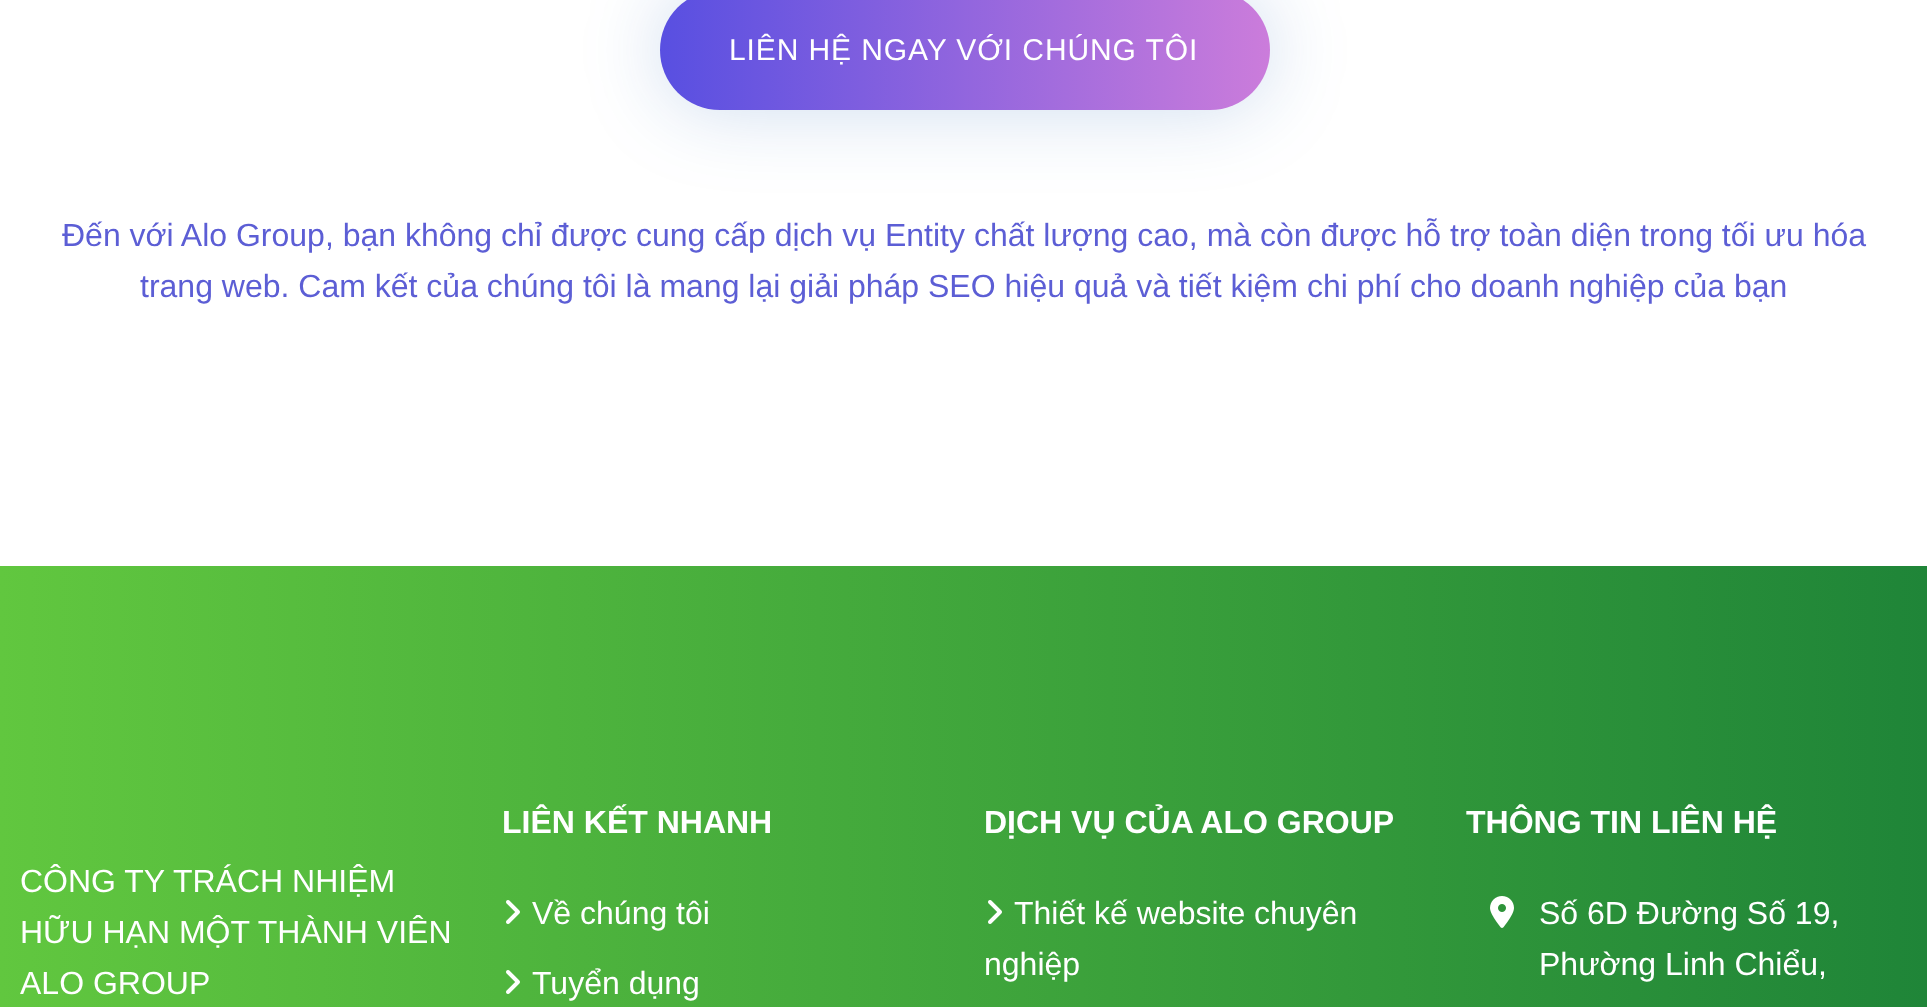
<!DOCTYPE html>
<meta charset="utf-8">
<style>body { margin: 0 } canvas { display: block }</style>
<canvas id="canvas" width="1927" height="1007"></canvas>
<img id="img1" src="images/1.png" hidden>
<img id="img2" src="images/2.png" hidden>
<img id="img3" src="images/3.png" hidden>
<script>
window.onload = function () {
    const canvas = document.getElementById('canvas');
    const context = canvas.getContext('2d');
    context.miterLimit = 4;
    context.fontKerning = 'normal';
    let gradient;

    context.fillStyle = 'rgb(255, 255, 255)';
    context.fillRect(0, 0, 1927, 1007);
    context.fillStyle = 'rgba(13, 85, 177, 0.2)';
    context.filter = 'blur(40px)';
    context.beginPath();
    context.roundRect(660, -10, 610, 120, 60);
    context.fill();
    context.filter = 'none';
    gradient = context.createLinearGradient(659, 50, 1269, 50);
    gradient.addColorStop(0, 'rgb(88, 79, 225)');
    gradient.addColorStop(1, 'rgb(203, 124, 219)');
    context.fillStyle = gradient;
    context.beginPath();
    context.roundRect(660, -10, 610, 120, 60);
    context.fill();
    gradient = context.createLinearGradient(0, 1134, 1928, 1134);
    gradient.addColorStop(0, 'rgb(97, 199, 63)');
    gradient.addColorStop(1, 'rgb(31, 133, 56)');
    context.fillStyle = gradient;
    context.fillRect(0, 566, 1927, 441);
    context.drawImage(document.getElementById('img1'), 506, 900, 14, 24);
    context.drawImage(document.getElementById('img1'), 506, 970, 14, 24);
    context.drawImage(document.getElementById('img2'), 988, 900, 14, 24);
    context.drawImage(document.getElementById('img3'), 1490, 896, 24, 32);
    context.letterSpacing = '0.9px';
    context.font = '30px Liberation Sans';
    context.fillStyle = 'rgb(255, 255, 255)';
    context.fillText('LIÊN HỆ NGAY VỚI CHÚNG TÔI', 729, 60);
    context.letterSpacing = '0px';
    context.font = '32px Liberation Sans';
    context.fillStyle = 'rgb(92, 94, 213)';
    context.fillText('Đến với Alo Group, bạn không chỉ được cung cấp dịch vụ Entity chất lượng cao, mà còn được hỗ trợ toàn diện trong tối ưu hóa', 62, 246);
    context.fillText('trang web. Cam kết của chúng tôi là mang lại giải pháp SEO hiệu quả và tiết kiệm chi phí cho doanh nghiệp của bạn', 140, 297);
    context.fillStyle = 'rgb(255, 255, 255)';
    context.fillText('CÔNG TY TRÁCH NHIỆM', 20, 892);
    context.fillText('HỮU HẠN MỘT THÀNH VIÊN', 20, 943);
    context.fillText('ALO GROUP', 20, 994);
    context.font = 'bold 32px Liberation Sans';
    context.fillText('LIÊN KẾT NHANH', 502, 833);
    context.font = '32px Liberation Sans';
    context.fillText('Về chúng tôi', 532, 924);
    context.fillText('Tuyển dụng', 532, 994);
    context.font = 'bold 32px Liberation Sans';
    context.fillText('DỊCH VỤ CỦA ALO GROUP', 984, 833);
    context.font = '32px Liberation Sans';
    context.fillText('Thiết kế website chuyên', 1014, 924);
    context.fillText('nghiệp', 984, 975);
    context.font = 'bold 32px Liberation Sans';
    context.fillText('THÔNG TIN LIÊN HỆ', 1466, 833);
    context.font = '32px Liberation Sans';
    context.fillText('Số 6D Đường Số 19,', 1539, 924);
    context.fillText('Phường Linh Chiểu,', 1539, 975);
};
</script>
